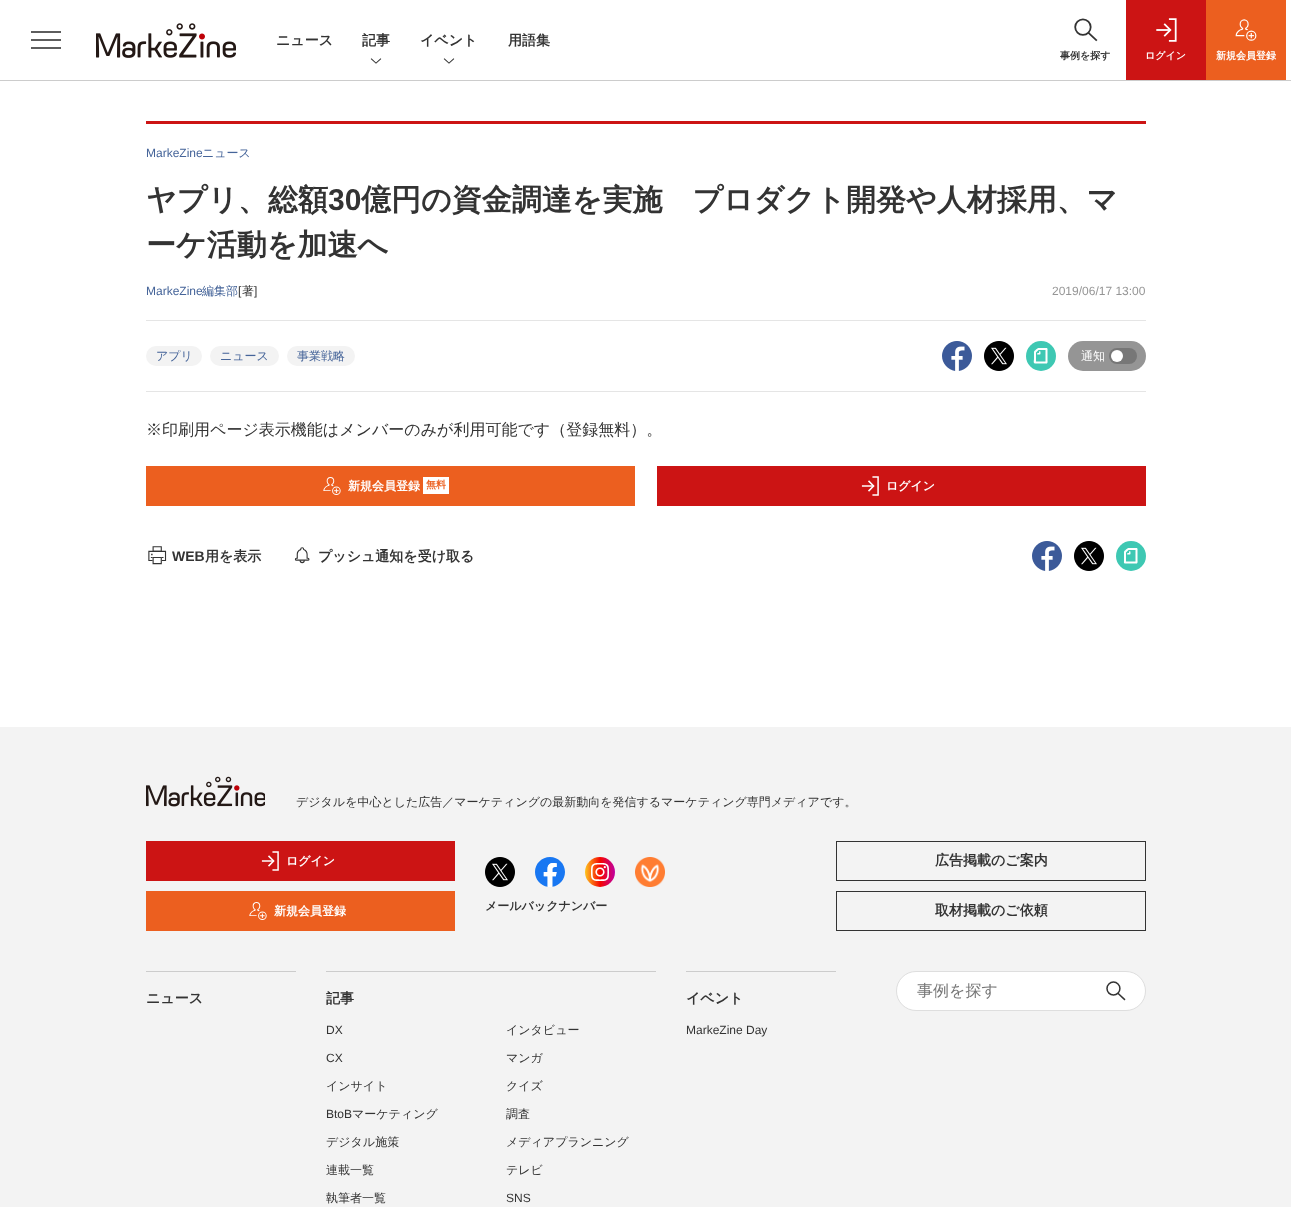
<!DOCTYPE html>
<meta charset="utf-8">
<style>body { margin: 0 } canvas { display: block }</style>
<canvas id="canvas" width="1291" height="1207"></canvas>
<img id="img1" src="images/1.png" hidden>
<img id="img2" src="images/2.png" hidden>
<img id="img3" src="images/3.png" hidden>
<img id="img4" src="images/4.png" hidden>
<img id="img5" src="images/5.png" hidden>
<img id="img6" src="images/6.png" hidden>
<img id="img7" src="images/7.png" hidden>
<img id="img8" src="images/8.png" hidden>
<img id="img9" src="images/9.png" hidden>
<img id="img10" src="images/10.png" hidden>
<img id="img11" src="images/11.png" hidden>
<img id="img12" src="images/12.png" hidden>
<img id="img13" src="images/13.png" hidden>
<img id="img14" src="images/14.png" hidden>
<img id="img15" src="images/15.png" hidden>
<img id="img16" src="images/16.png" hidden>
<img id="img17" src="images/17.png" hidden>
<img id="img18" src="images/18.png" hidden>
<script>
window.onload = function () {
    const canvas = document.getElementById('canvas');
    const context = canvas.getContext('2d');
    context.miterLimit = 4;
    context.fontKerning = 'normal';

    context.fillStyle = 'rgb(255, 255, 255)';
    context.fillRect(0, 0, 1291, 1207);
    context.fillStyle = 'rgb(204, 204, 204)';
    context.fillRect(0, 80, 1291, 1);
    context.fillStyle = 'rgb(93, 93, 93)';
    context.fillRect(31, 39, 30, 2);
    context.fillRect(31, 31, 30, 2);
    context.fillRect(31, 47, 30, 2);
    context.drawImage(document.getElementById('img1'), 96, 23, 140, 35);
    context.drawImage(document.getElementById('img2'), 370, 58, 12, 6);
    context.drawImage(document.getElementById('img2'), 443, 58, 12, 6);
    context.drawImage(document.getElementById('img3'), 1074, 18, 24, 24);
    context.fillStyle = 'rgb(204, 20, 20)';
    context.fillRect(1126, 0, 80, 80);
    context.drawImage(document.getElementById('img4'), 1156, 18, 21, 24);
    context.fillStyle = 'rgb(236, 95, 31)';
    context.fillRect(1206, 0, 80, 80);
    context.drawImage(document.getElementById('img5'), 1235, 19, 22, 22);
    context.fillStyle = 'rgb(204, 20, 20)';
    context.fillRect(146, 121, 1000, 3);
    context.fillStyle = 'rgb(229, 229, 229)';
    context.fillRect(146, 391, 1000, 1);
    context.fillRect(146, 320, 1000, 1);
    context.fillStyle = 'rgb(243, 243, 243)';
    context.beginPath();
    context.roundRect(146, 346, 56, 20, 10);
    context.fill();
    context.beginPath();
    context.roundRect(210, 346, 69, 20, 10);
    context.fill();
    context.beginPath();
    context.roundRect(287, 346, 68, 20, 10);
    context.fill();
    context.drawImage(document.getElementById('img6'), 942, 341, 30, 30);
    context.drawImage(document.getElementById('img7'), 984, 341, 30, 30);
    context.fillStyle = 'rgb(62, 200, 179)';
    context.beginPath();
    context.arc(1041, 356, 15, 0, 2 * Math.PI);
    context.fill();
    context.fillStyle = 'rgb(255, 255, 255)';
    context.beginPath();
    context.moveTo(1035, 363.5);
    context.bezierCurveTo(1033, 363.5, 1034, 360, 1034, 359);
    context.lineTo(1034, 353.5);
    context.bezierCurveTo(1034, 351, 1034, 351.5, 1036, 349.5);
    context.bezierCurveTo(1038.5, 347.5, 1038, 348, 1041, 348);
    context.lineTo(1046.5, 348);
    context.bezierCurveTo(1048, 348, 1047.5, 350.5, 1047.5, 351);
    context.lineTo(1047.5, 360);
    context.bezierCurveTo(1047.5, 361, 1048, 363.5, 1046.5, 363.5);
    context.closePath();
    context.moveTo(1038.5, 350);
    context.lineTo(1045.5, 350);
    context.lineTo(1045.5, 361.5);
    context.lineTo(1036, 361.5);
    context.lineTo(1036, 352.5);
    context.closePath();
    context.moveTo(1038, 354.5);
    context.bezierCurveTo(1040, 354.5, 1040.5, 355, 1040.5, 353);
    context.bezierCurveTo(1040.5, 350, 1039, 350.5, 1039, 353);
    context.bezierCurveTo(1036, 353, 1037, 355, 1038, 354.5);
    context.closePath();
    context.fill('evenodd');
    context.fillStyle = 'rgb(149, 149, 149)';
    context.beginPath();
    context.roundRect(1068, 341, 78, 30, 15);
    context.fill();
    context.fillStyle = 'rgb(119, 119, 119)';
    context.beginPath();
    context.roundRect(1109, 348, 28, 16, 8);
    context.fill();
    context.fillStyle = 'rgb(255, 255, 255)';
    context.beginPath();
    context.arc(1117, 356, 6, 0, 2 * Math.PI);
    context.fill();
    context.fillStyle = 'rgb(236, 95, 31)';
    context.fillRect(146, 466, 489, 40);
    context.drawImage(document.getElementById('img8'), 323, 477, 18, 18);
    context.fillStyle = 'rgb(255, 255, 255)';
    context.fillRect(423, 477, 26, 17);
    context.fillStyle = 'rgb(204, 20, 20)';
    context.fillRect(657, 466, 489, 40);
    context.drawImage(document.getElementById('img9'), 861, 476, 18, 20);
    context.drawImage(document.getElementById('img10'), 148, 546, 19, 19);
    context.drawImage(document.getElementById('img11'), 294, 547, 16, 17);
    context.drawImage(document.getElementById('img6'), 1032, 541, 30, 30);
    context.drawImage(document.getElementById('img7'), 1074, 541, 30, 30);
    context.fillStyle = 'rgb(62, 200, 179)';
    context.beginPath();
    context.arc(1131, 556, 15, 0, 2 * Math.PI);
    context.fill();
    context.fillStyle = 'rgb(255, 255, 255)';
    context.beginPath();
    context.moveTo(1125, 563.5);
    context.bezierCurveTo(1123.5, 563.5, 1124, 562, 1124, 561);
    context.lineTo(1124, 553.5);
    context.bezierCurveTo(1124, 551, 1124, 551.5, 1126, 549.5);
    context.bezierCurveTo(1128.5, 547.5, 1128, 548, 1131, 548);
    context.lineTo(1136.5, 548);
    context.bezierCurveTo(1138, 548, 1137.5, 550.5, 1137.5, 551);
    context.lineTo(1137.5, 560);
    context.bezierCurveTo(1137.5, 561, 1138, 563.5, 1136.5, 563.5);
    context.closePath();
    context.moveTo(1128.5, 550);
    context.lineTo(1135.5, 550);
    context.lineTo(1135.5, 561.5);
    context.lineTo(1126, 561.5);
    context.lineTo(1126, 552.5);
    context.closePath();
    context.moveTo(1128, 554.5);
    context.bezierCurveTo(1130, 554.5, 1130.5, 555, 1130.5, 553);
    context.bezierCurveTo(1130.5, 550, 1129, 550.5, 1129, 553);
    context.bezierCurveTo(1126, 553, 1127, 555, 1128, 554.5);
    context.closePath();
    context.fill('evenodd');
    context.fillStyle = 'rgb(243, 243, 243)';
    context.fillRect(0, 727, 1291, 480);
    context.drawImage(document.getElementById('img12'), 146, 776, 119, 31);
    context.fillStyle = 'rgb(204, 20, 20)';
    context.fillRect(146, 841, 309, 40);
    context.drawImage(document.getElementById('img9'), 261, 851, 18, 20);
    context.fillStyle = 'rgb(236, 95, 31)';
    context.fillRect(146, 891, 309, 40);
    context.drawImage(document.getElementById('img13'), 249, 902, 18, 18);
    context.drawImage(document.getElementById('img14'), 485, 857, 30, 30);
    context.drawImage(document.getElementById('img15'), 535, 857, 30, 30);
    context.drawImage(document.getElementById('img16'), 585, 857, 30, 30);
    context.drawImage(document.getElementById('img17'), 635, 857, 30, 30);
    context.strokeStyle = 'rgb(51, 51, 51)';
    context.strokeRect(836.5, 841.5, 309, 39);
    context.strokeRect(836.5, 891.5, 309, 39);
    context.fillStyle = 'rgb(204, 204, 204)';
    context.fillRect(146, 971, 150, 1);
    context.fillRect(326, 971, 330, 1);
    context.fillRect(686, 971, 150, 1);
    context.fillStyle = 'rgb(255, 255, 255)';
    context.beginPath();
    context.roundRect(896.5, 971.5, 249, 39, 19.5);
    context.fill();
    context.strokeStyle = 'rgb(222, 222, 222)';
    context.stroke();
    context.drawImage(document.getElementById('img18'), 1106, 981, 20, 20);
    context.font = 'bold 14px WenQuanYi Zen Hei';
    context.fillStyle = 'rgb(51, 51, 51)';
    context.fillText('ニュース', 276, 45);
    context.fillText('記事', 362, 45);
    context.fillText('イベント', 420, 45);
    context.fillText('用語集', 508, 45);
    context.font = 'bold 10px WenQuanYi Zen Hei';
    context.fillText('事例を探す', 1060, 59);
    context.fillStyle = 'rgb(255, 255, 255)';
    context.fillText('ログイン', 1145, 59);
    context.fillText('新規会員登録', 1216, 59);
    context.font = '12px Liberation Sans';
    context.fillStyle = 'rgb(69, 100, 153)';
    context.fillText('MarkeZine', 146, 157);
    context.font = '500 12px WenQuanYi Zen Hei';
    context.fillText('ニュース', 202, 157);
    context.font = 'bold 30px WenQuanYi Zen Hei';
    context.fillStyle = 'rgb(51, 51, 51)';
    context.fillText('ヤプリ、総額', 146, 210);
    context.font = 'bold 30px Liberation Sans';
    context.fillText('30', 328, 210);
    context.font = 'bold 30px WenQuanYi Zen Hei';
    context.fillText('億円の資金調達を実施　プロダクト開発や人材採用、マ', 361, 210);
    context.fillText('ーケ活動を加速へ', 146, 255);
    context.font = '12px Liberation Sans';
    context.fillStyle = 'rgb(69, 100, 153)';
    context.fillText('MarkeZine', 146, 295);
    context.font = '500 12px WenQuanYi Zen Hei';
    context.fillText('編集部', 202, 295);
    context.font = '12px Liberation Sans';
    context.fillStyle = 'rgb(51, 51, 51)';
    context.fillText('[', 238, 295);
    context.font = '500 12px WenQuanYi Zen Hei';
    context.fillText('著', 242, 295);
    context.font = '12px Liberation Sans';
    context.fillText(']', 254, 295);
    context.fillStyle = 'rgb(149, 149, 149)';
    context.fillText('2019/06/17 13:00', 1052, 295);
    context.font = '500 12px WenQuanYi Zen Hei';
    context.fillStyle = 'rgb(69, 100, 153)';
    context.fillText('アプリ', 156, 360);
    context.fillText('ニュース', 220, 360);
    context.fillText('事業戦略', 297, 360);
    context.fillStyle = 'rgb(255, 255, 255)';
    context.fillText('通知', 1081, 360);
    context.font = '500 16px WenQuanYi Zen Hei';
    context.fillStyle = 'rgb(51, 51, 51)';
    context.fillText('※印刷用ページ表示機能はメンバーのみが利用可能です（登録無料）。', 146, 435);
    context.font = 'bold 12px WenQuanYi Zen Hei';
    context.fillStyle = 'rgb(255, 255, 255)';
    context.fillText('新規会員登録', 348, 490);
    context.font = 'bold 10px WenQuanYi Zen Hei';
    context.fillStyle = 'rgb(236, 95, 31)';
    context.fillText('無料', 426, 488);
    context.font = 'bold 12px WenQuanYi Zen Hei';
    context.fillStyle = 'rgb(255, 255, 255)';
    context.fillText('ログイン', 886, 490);
    context.font = 'bold 14px Liberation Sans';
    context.fillStyle = 'rgb(51, 51, 51)';
    context.fillText('WEB', 172, 561);
    context.font = 'bold 14px WenQuanYi Zen Hei';
    context.fillText('用を表示', 205, 561);
    context.fillText('プッシュ通知を受け取る', 318, 561);
    context.font = '500 12px WenQuanYi Zen Hei';
    context.fillText('デジタルを中心とした広告／マーケティングの最新動向を発信するマーケティング専門メディアです。', 296, 806);
    context.font = 'bold 12px WenQuanYi Zen Hei';
    context.fillStyle = 'rgb(255, 255, 255)';
    context.fillText('ログイン', 286, 865);
    context.fillText('新規会員登録', 274, 915);
    context.fillStyle = 'rgb(51, 51, 51)';
    context.fillText('メールバックナンバー', 485, 910);
    context.font = 'bold 14px WenQuanYi Zen Hei';
    context.fillText('広告掲載のご案内', 935, 865);
    context.fillText('取材掲載のご依頼', 935, 915);
    context.fillText('ニュース', 146, 1003);
    context.fillText('記事', 326, 1003);
    context.font = '12px Liberation Sans';
    context.fillText('DX', 326, 1034);
    context.font = '500 12px WenQuanYi Zen Hei';
    context.fillText('インタビュー', 506, 1034);
    context.font = '12px Liberation Sans';
    context.fillText('CX', 326, 1062);
    context.font = '500 12px WenQuanYi Zen Hei';
    context.fillText('マンガ', 506, 1062);
    context.fillText('インサイト', 326, 1090);
    context.fillText('クイズ', 506, 1090);
    context.font = '12px Liberation Sans';
    context.fillText('BtoB', 326, 1118);
    context.font = '500 12px WenQuanYi Zen Hei';
    context.fillText('マーケティング', 352, 1118);
    context.fillText('調査', 506, 1118);
    context.fillText('デジタル施策', 326, 1146);
    context.fillText('メディアプランニング', 506, 1146);
    context.fillText('連載一覧', 326, 1174);
    context.fillText('テレビ', 506, 1174);
    context.fillText('執筆者一覧', 326, 1202);
    context.font = '12px Liberation Sans';
    context.fillText('SNS', 506, 1202);
    context.font = 'bold 14px WenQuanYi Zen Hei';
    context.fillText('イベント', 686, 1003);
    context.font = '12px Liberation Sans';
    context.fillText('MarkeZine Day', 686, 1034);
    context.font = '500 16px WenQuanYi Zen Hei';
    context.fillStyle = 'rgb(117, 117, 117)';
    context.fillText('事例を探す', 917, 996);
};
</script>
